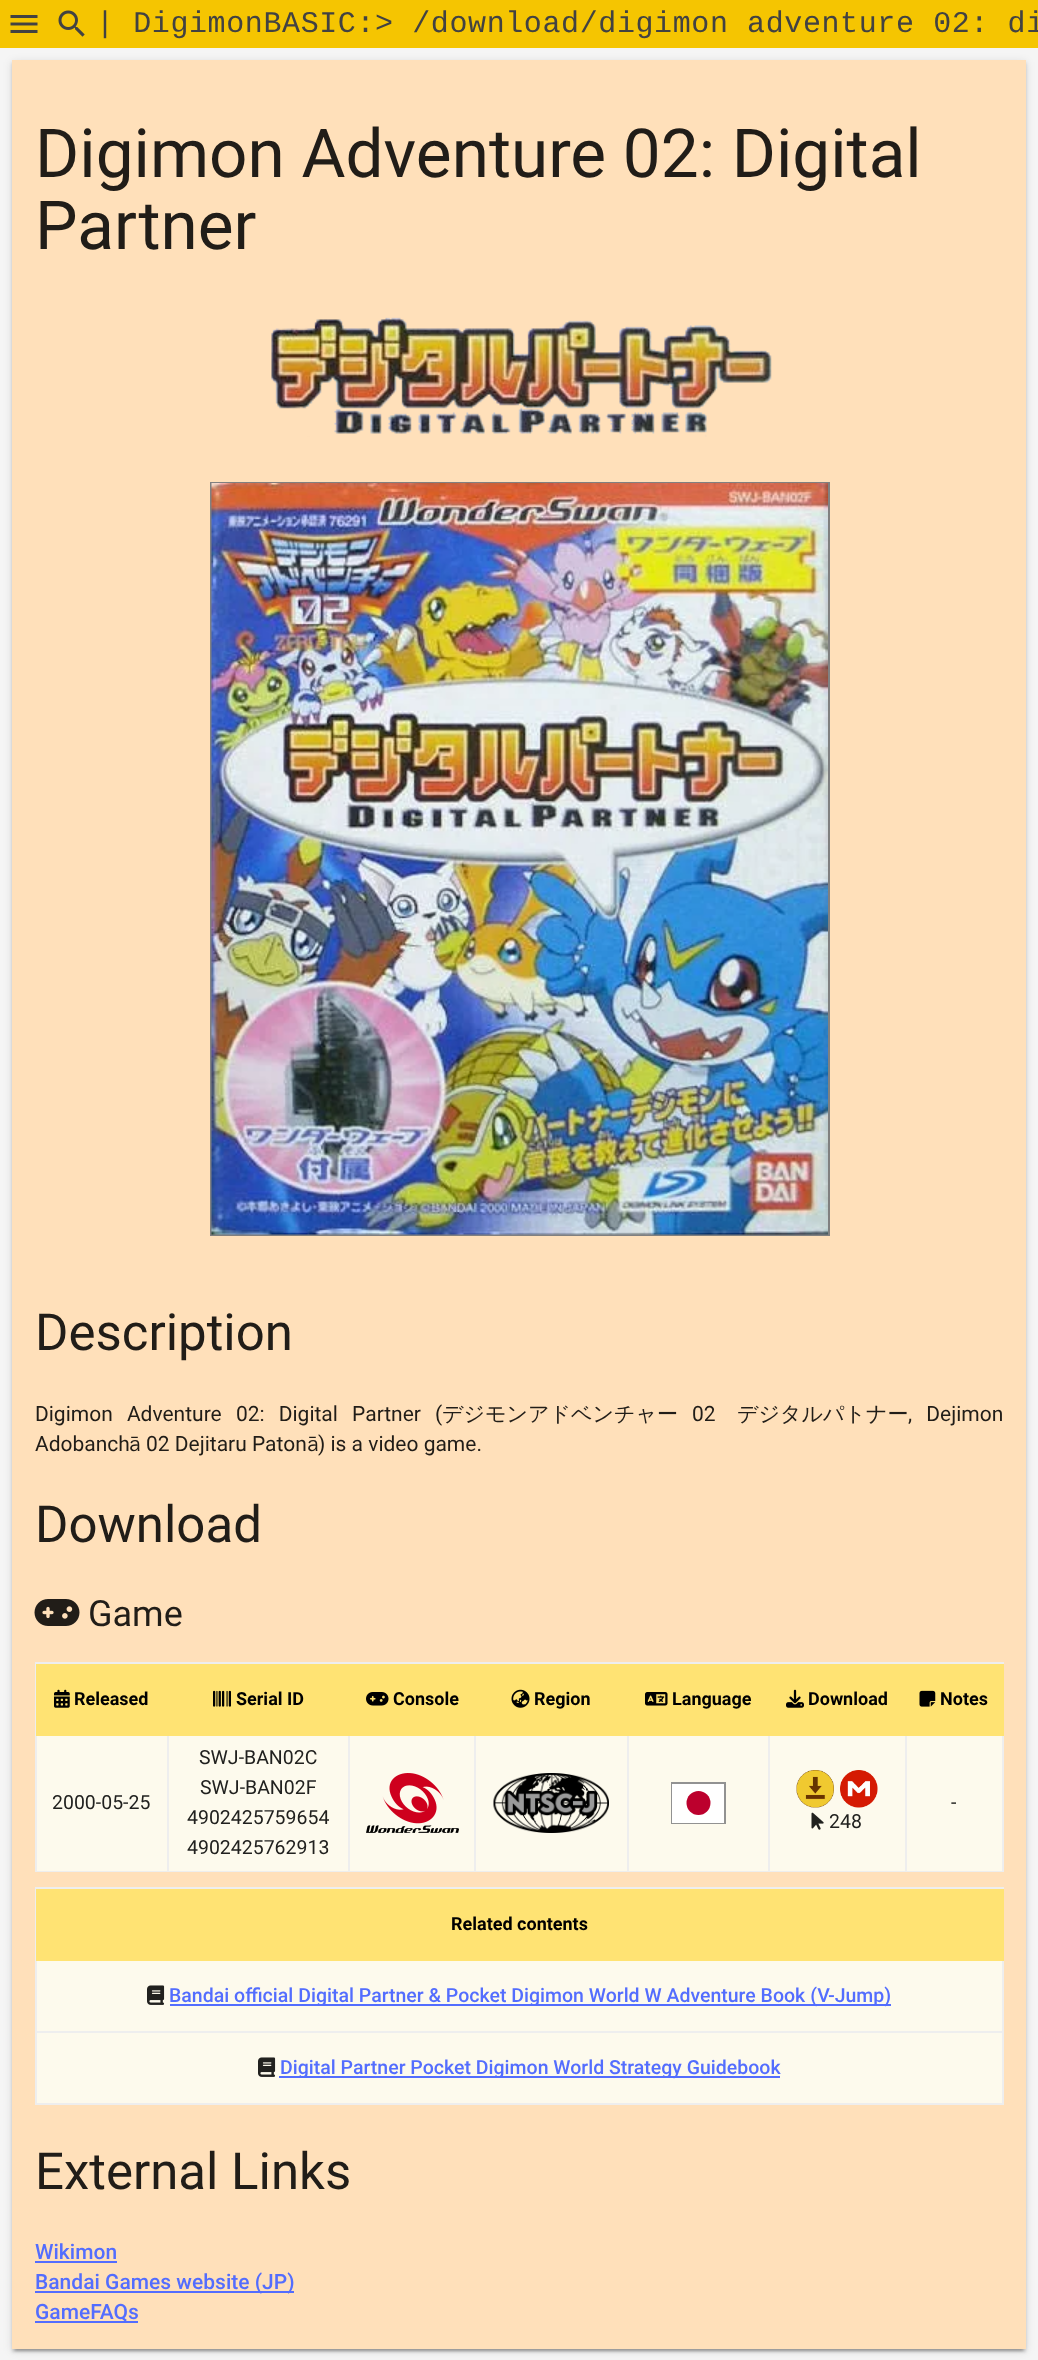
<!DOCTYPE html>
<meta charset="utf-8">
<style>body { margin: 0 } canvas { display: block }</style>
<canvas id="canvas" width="1038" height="2360"></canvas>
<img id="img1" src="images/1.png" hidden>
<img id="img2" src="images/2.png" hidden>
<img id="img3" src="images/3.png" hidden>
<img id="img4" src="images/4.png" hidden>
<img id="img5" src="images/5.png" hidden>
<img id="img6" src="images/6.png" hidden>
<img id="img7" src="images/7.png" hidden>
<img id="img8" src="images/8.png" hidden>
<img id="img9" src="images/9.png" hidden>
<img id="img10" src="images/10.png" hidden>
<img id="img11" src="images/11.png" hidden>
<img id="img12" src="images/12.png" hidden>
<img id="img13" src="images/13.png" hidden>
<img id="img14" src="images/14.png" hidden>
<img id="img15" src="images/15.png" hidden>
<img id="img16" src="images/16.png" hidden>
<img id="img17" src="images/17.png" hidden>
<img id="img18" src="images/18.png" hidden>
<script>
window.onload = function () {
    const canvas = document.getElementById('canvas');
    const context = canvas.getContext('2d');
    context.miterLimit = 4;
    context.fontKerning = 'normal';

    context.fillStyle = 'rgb(245, 197, 1)';
    context.fillRect(0, 0, 1038, 2360);
    context.drawImage(document.getElementById('img1'), 10, 15, 28, 18);
    context.drawImage(document.getElementById('img2'), 58, 10, 27, 27);
    context.fillStyle = 'rgb(245, 245, 245)';
    context.fillRect(0, 48, 1038, 2312);
    context.fillStyle = 'rgba(0, 0, 0, 0.12)';
    context.filter = 'blur(4px)';
    context.beginPath();
    context.rect(12, 62, 1014, 2289);
    context.fill();
    context.filter = 'none';
    context.fillStyle = 'rgba(0, 0, 0, 0.2)';
    context.filter = 'blur(1px)';
    context.beginPath();
    context.rect(15, 68, 1008, 2283);
    context.fill();
    context.filter = 'none';
    context.fillStyle = 'rgba(0, 0, 0, 0.14)';
    context.filter = 'blur(1.5px)';
    context.beginPath();
    context.rect(12, 63, 1014, 2289);
    context.fill();
    context.filter = 'none';
    context.fillStyle = 'rgb(255, 224, 186)';
    context.fillRect(12, 60, 1014, 2289);
    context.drawImage(document.getElementById('img3'), 271, 317, 501, 120);
    context.strokeStyle = 'rgb(128, 128, 128)';
    context.lineWidth = 2;
    context.strokeRect(211, 483, 618, 752);
    context.drawImage(document.getElementById('img4'), 211, 483, 617, 752);
    context.drawImage(document.getElementById('img5'), 34, 1599, 46, 27);
    context.fillStyle = 'rgb(253, 250, 237)';
    context.fillRect(37, 1736, 965, 135);
    context.fillStyle = 'rgb(238, 238, 238)';
    context.fillRect(35, 1662, 969, 2);
    context.fillRect(1002, 1734, 2, 138);
    context.fillRect(905, 1871, 99, 1);
    context.fillRect(905, 1734, 2, 138);
    context.fillRect(768, 1871, 138, 1);
    context.fillRect(768, 1734, 2, 138);
    context.fillRect(627, 1871, 143, 1);
    context.fillRect(627, 1734, 2, 138);
    context.fillRect(474, 1871, 155, 1);
    context.fillRect(474, 1734, 2, 138);
    context.fillRect(348, 1871, 128, 1);
    context.fillRect(348, 1734, 2, 138);
    context.fillRect(167, 1871, 183, 1);
    context.fillRect(167, 1734, 2, 138);
    context.fillRect(35, 1871, 133, 1);
    context.fillRect(35, 1734, 2, 138);
    context.fillRect(35, 1662, 2, 74);
    context.fillStyle = 'rgb(255, 227, 115)';
    context.fillRect(36, 1664, 968, 72);
    context.drawImage(document.getElementById('img6'), 54, 1689, 16, 19);
    context.drawImage(document.getElementById('img7'), 213, 1690, 18, 17);
    context.drawImage(document.getElementById('img8'), 366, 1692, 23, 14);
    context.drawImage(document.getElementById('img9'), 511, 1689, 19, 19);
    context.drawImage(document.getElementById('img10'), 645, 1692, 23, 14);
    context.drawImage(document.getElementById('img11'), 786, 1689, 18, 19);
    context.drawImage(document.getElementById('img12'), 919, 1690, 17, 17);
    context.drawImage(document.getElementById('img13'), 366, 1773, 93, 60);
    context.drawImage(document.getElementById('img14'), 493, 1773, 116, 60);
    context.strokeStyle = 'rgb(146, 146, 146)';
    context.strokeRect(672, 1783, 53, 40);
    context.fillStyle = 'rgb(255, 255, 255)';
    context.fillRect(672, 1784, 52, 39);
    context.fillStyle = 'rgb(188, 0, 45)';
    context.beginPath();
    context.arc(698.5, 1803, 12, 0, 2 * Math.PI);
    context.fill();
    context.drawImage(document.getElementById('img15'), 796, 1770, 38, 38);
    context.drawImage(document.getElementById('img16'), 840, 1770, 38, 38);
    context.drawImage(document.getElementById('img17'), 811, 1812, 13, 18);
    context.fillStyle = 'rgb(253, 250, 237)';
    context.fillRect(37, 1961, 965, 142);
    context.fillStyle = 'rgb(238, 238, 238)';
    context.fillRect(35, 1887, 969, 2);
    context.fillRect(35, 2031, 969, 2);
    context.fillRect(1002, 1959, 2, 146);
    context.fillRect(35, 2103, 969, 2);
    context.fillRect(35, 1959, 2, 146);
    context.fillRect(35, 1887, 2, 74);
    context.fillStyle = 'rgb(255, 227, 115)';
    context.fillRect(36, 1889, 968, 72);
    context.drawImage(document.getElementById('img18'), 147, 1985, 18, 20);
    context.fillStyle = 'rgb(83, 109, 254)';
    context.fillRect(170, 2004, 721, 2);
    context.drawImage(document.getElementById('img18'), 258, 2057, 18, 20);
    context.fillRect(279, 2076, 501, 2);
    context.fillRect(35, 2261, 82, 2);
    context.fillRect(35, 2291, 259, 2);
    context.fillRect(35, 2321, 103, 2);
    context.letterSpacing = '0.6px';
    context.font = '30px Liberation Mono';
    context.fillStyle = 'rgb(66, 66, 66)';
    context.fillText('| DigimonBASIC:> /download/digimon adventure 02: di', 96, 32);
    context.letterSpacing = '0px';
    context.font = '67.5px Roboto';
    context.fillStyle = 'rgb(33, 29, 24)';
    context.fillText('Digimon Adventure 02: Digital', 35, 177);
    context.fillText('Partner', 35, 249);
    context.font = '51px Roboto';
    context.fillText('Description', 35, 1350);
    context.wordSpacing = '9px';
    context.font = '21px Roboto';
    context.fillText('Digimon Adventure 02: Digital Partner (', 35, 1421);
    context.wordSpacing = '0px';
    context.font = '500 21px WenQuanYi Zen Hei';
    context.fillText('デジモンアドベンチャー', 442, 1421);
    context.font = '21px Roboto';
    context.fillText('02', 692, 1421);
    context.font = '500 21px WenQuanYi Zen Hei';
    context.fillText('デジタルパトナー', 737, 1421);
    context.wordSpacing = '9px';
    context.font = '21px Roboto';
    context.fillText(', Dejimon', 908, 1421);
    context.wordSpacing = '0px';
    context.fillText('Adobanch', 35, 1451);
    context.font = '500 21px WenQuanYi Zen Hei';
    context.fillText('ā', 129, 1451);
    context.font = '21px Roboto';
    context.fillText('02 Dejitaru Paton', 146, 1451);
    context.font = '500 21px WenQuanYi Zen Hei';
    context.fillText('ā', 307, 1451);
    context.font = '21px Roboto';
    context.fillText(') is a video game.', 318, 1451);
    context.font = '51px Roboto';
    context.fillText('Download', 35, 1542);
    context.font = '36px Roboto';
    context.fillText('Game', 88, 1626);
    context.font = 'bold 18px Roboto';
    context.fillStyle = 'rgb(0, 0, 0)';
    context.fillText('Released', 74, 1705);
    context.fillText('Serial ID', 236, 1705);
    context.fillText('Console', 393, 1705);
    context.fillText('Region', 534, 1705);
    context.fillText('Language', 672, 1705);
    context.fillText('Download', 808, 1705);
    context.fillText('Notes', 940, 1705);
    context.font = '19.5px Roboto';
    context.fillStyle = 'rgb(33, 33, 31)';
    context.fillText('2000-05-25', 52, 1809);
    context.fillText('SWJ-BAN02C', 199, 1764);
    context.fillText('SWJ-BAN02F', 200, 1794);
    context.fillText('4902425759654', 187, 1824);
    context.fillText('4902425762913', 187, 1854);
    context.fillText('-', 951, 1809);
    context.fillText('248', 829, 1828);
    context.font = 'bold 18px Roboto';
    context.fillStyle = 'rgb(0, 0, 0)';
    context.fillText('Related contents', 451, 1930);
    context.font = '500 19.5px Roboto';
    context.fillStyle = 'rgb(83, 109, 254)';
    context.fillText('Bandai official Digital Partner & Pocket Digimon World W Adventure Book (V-Jump)', 169, 2002);
    context.fillText('Digital Partner Pocket Digimon World Strategy Guidebook', 280, 2074);
    context.font = '51px Roboto';
    context.fillStyle = 'rgb(33, 29, 24)';
    context.fillText('External Links', 35, 2189);
    context.font = '500 21px Roboto';
    context.fillStyle = 'rgb(83, 109, 254)';
    context.fillText('Wikimon', 35, 2259);
    context.fillText('Bandai Games website (JP)', 35, 2289);
    context.fillText('GameFAQs', 35, 2319);
};
</script>
